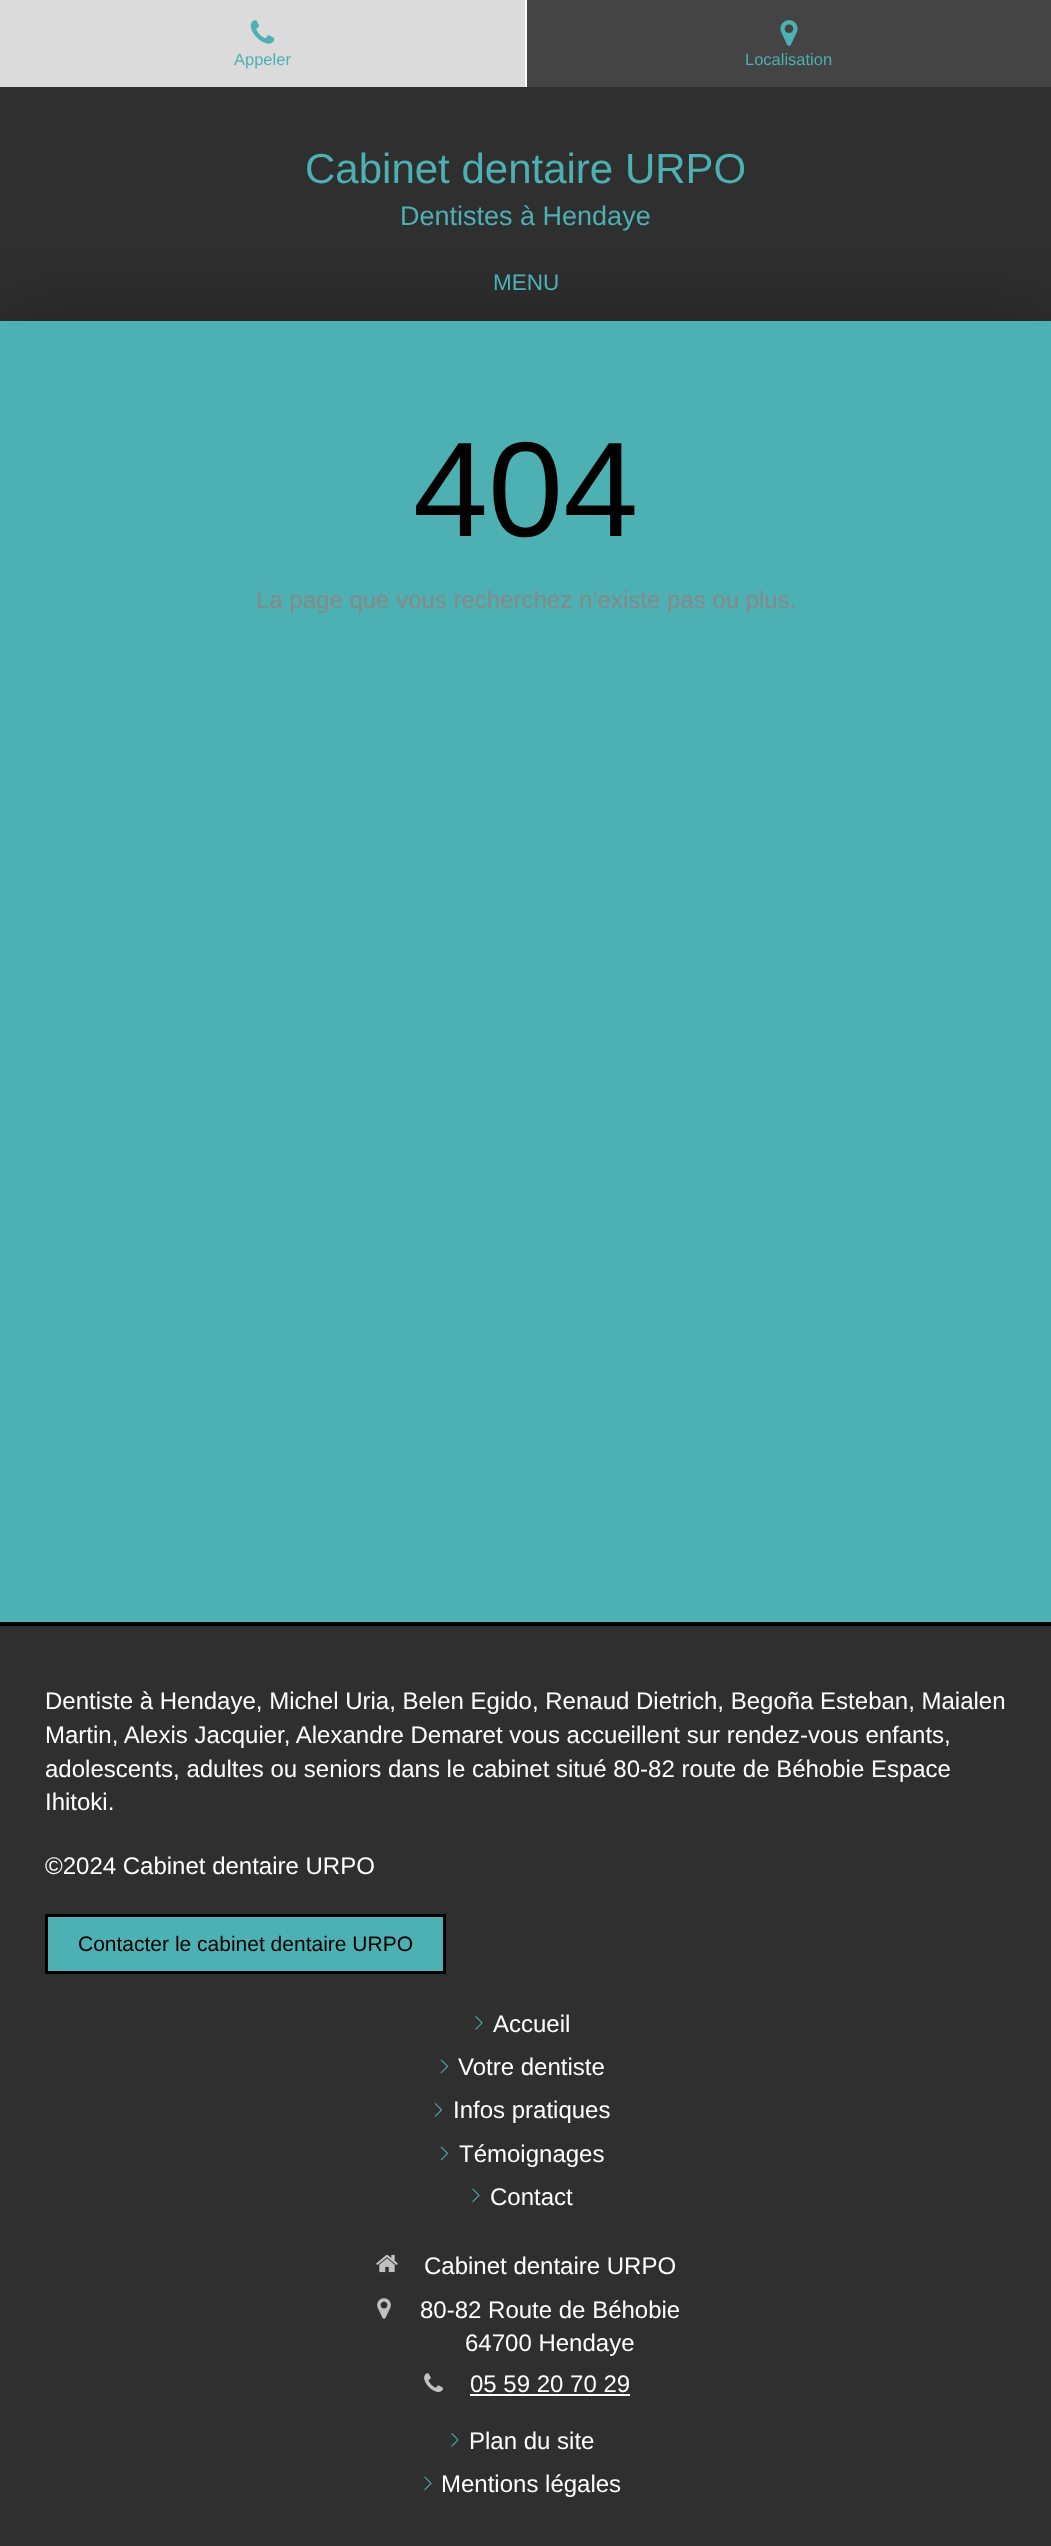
<!DOCTYPE html>
<meta charset="utf-8">
<style>body { margin: 0 } canvas { display: block }</style>
<canvas id="canvas" width="1051" height="2546"></canvas>
<img id="img1" src="images/1.png" hidden>
<img id="img2" src="images/2.png" hidden>
<img id="img3" src="images/3.png" hidden>
<img id="img4" src="images/4.png" hidden>
<img id="img5" src="images/5.png" hidden>
<img id="img6" src="images/6.png" hidden>
<img id="img7" src="images/7.png" hidden>
<img id="img8" src="images/8.png" hidden>
<img id="img9" src="images/9.png" hidden>
<script>
window.onload = function () {
    const canvas = document.getElementById('canvas');
    const context = canvas.getContext('2d');
    context.miterLimit = 4;
    context.fontKerning = 'normal';

    context.fillStyle = 'rgb(77, 176, 179)';
    context.fillRect(0, 0, 1051, 2546);
    context.fillStyle = 'rgb(47, 47, 47)';
    context.fillRect(0, 87, 1051, 234);
    context.fillStyle = 'rgb(68, 68, 68)';
    context.fillRect(527, 0, 524, 87);
    context.fillStyle = 'rgb(219, 219, 219)';
    context.fillRect(0, 0, 525, 87);
    context.drawImage(document.getElementById('img1'), 250, 20, 25, 24);
    context.fillStyle = 'rgb(251, 251, 251)';
    context.fillRect(525, 0, 2, 87);
    context.drawImage(document.getElementById('img2'), 780, 20, 18, 26);
    context.save();
    context.beginPath();
    context.rect(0, 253, 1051, 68);
    context.clip();
    context.fillStyle = 'rgba(0, 0, 0, 0.3)';
    context.filter = 'blur(45px)';
    context.beginPath();
    context.rect(0, 321, 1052, 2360);
    context.fill();
    context.filter = 'none';
    context.restore();
    context.fillStyle = 'rgb(0, 0, 0)';
    context.fillRect(0, 1622, 1051, 4);
    context.fillStyle = 'rgb(47, 47, 47)';
    context.fillRect(0, 1626, 1051, 920);
    context.fillStyle = 'rgb(77, 176, 179)';
    context.beginPath();
    context.rect(46.5, 1915.5, 398, 57);
    context.fill();
    context.strokeStyle = 'rgb(0, 0, 0)';
    context.lineWidth = 3;
    context.stroke();
    context.drawImage(document.getElementById('img3'), 475, 2016, 8, 14);
    context.drawImage(document.getElementById('img4'), 440, 2059, 8, 15);
    context.drawImage(document.getElementById('img5'), 434, 2103, 8, 14);
    context.drawImage(document.getElementById('img4'), 440, 2146, 8, 15);
    context.drawImage(document.getElementById('img6'), 472, 2188, 8, 15);
    context.drawImage(document.getElementById('img7'), 376, 2254, 22, 19);
    context.drawImage(document.getElementById('img8'), 377, 2298, 14, 21);
    context.drawImage(document.getElementById('img9'), 424, 2373, 19, 20);
    context.fillStyle = 'rgb(255, 255, 255)';
    context.fillRect(470, 2394, 160, 2);
    context.drawImage(document.getElementById('img3'), 451, 2433, 8, 14);
    context.drawImage(document.getElementById('img6'), 424, 2476, 8, 15);
    context.font = '16.5px Liberation Sans';
    context.fillStyle = 'rgb(77, 176, 179)';
    context.fillText('Appeler', 234, 65);
    context.fillText('Localisation', 745, 65);
    context.font = '42px Liberation Sans';
    context.fillText('Cabinet dentaire URPO', 305, 183);
    context.font = '27px Liberation Sans';
    context.fillText('Dentistes à Hendaye', 400, 225);
    context.font = '22.5px Liberation Sans';
    context.fillText('MENU', 493, 290);
    context.font = '135px Liberation Sans';
    context.fillStyle = 'rgb(0, 0, 0)';
    context.fillText('404', 413, 536);
    context.font = '24px Liberation Sans';
    context.fillStyle = 'rgb(136, 136, 136)';
    context.fillText('La page que vous recherchez n’existe pas ou plus.', 256, 608);
    context.fillStyle = 'rgb(255, 255, 255)';
    context.fillText('Dentiste à Hendaye, Michel Uria, Belen Egido, Renaud Dietrich, Begoña Esteban, Maialen', 45, 1709);
    context.fillText('Martin, Alexis Jacquier, Alexandre Demaret vous accueillent sur rendez-vous enfants,', 45, 1743);
    context.fillText('adolescents, adultes ou seniors dans le cabinet situé 80-82 route de Béhobie Espace', 45, 1777);
    context.fillText('Ihitoki.', 45, 1810);
    context.fillText('©2024 Cabinet dentaire URPO', 45, 1874);
    context.font = '21px Liberation Sans';
    context.fillStyle = 'rgb(0, 0, 0)';
    context.fillText('Contacter le cabinet dentaire URPO', 78, 1951);
    context.font = '24px Liberation Sans';
    context.fillStyle = 'rgb(255, 255, 255)';
    context.fillText('Accueil', 493, 2032);
    context.fillText('Votre dentiste', 458, 2075);
    context.fillText('Infos pratiques', 453, 2118);
    context.fillText('Témoignages', 459, 2162);
    context.fillText('Contact', 490, 2205);
    context.fillText('Cabinet dentaire URPO', 424, 2274);
    context.fillText('80-82 Route de Béhobie', 420, 2318);
    context.fillText('64700 Hendaye', 465, 2351);
    context.fillText('05 59 20 70 29', 470, 2392);
    context.fillText('Plan du site', 469, 2449);
    context.fillText('Mentions légales', 441, 2492);
};
</script>
